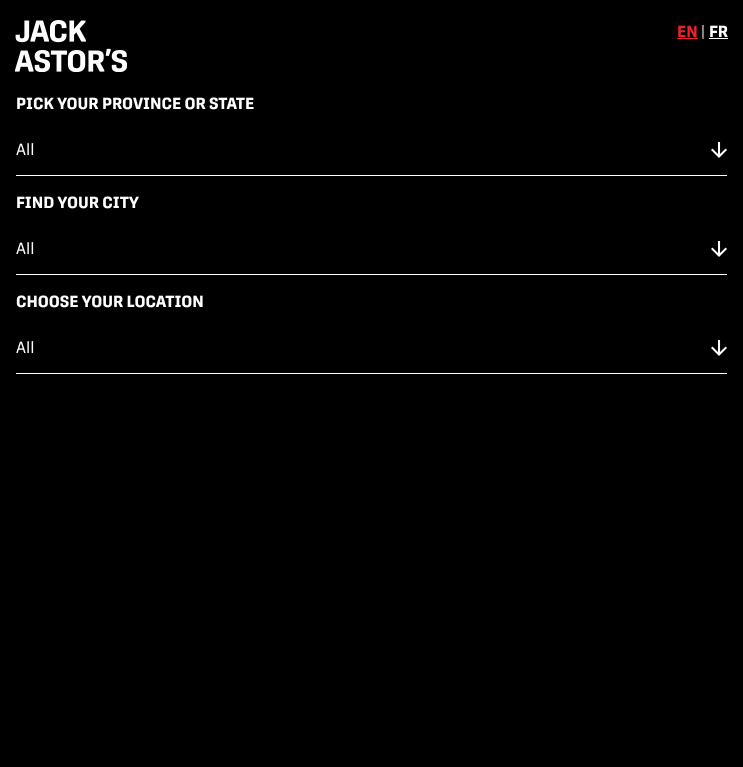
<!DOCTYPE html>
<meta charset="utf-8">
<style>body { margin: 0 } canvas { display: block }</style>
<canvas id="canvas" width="743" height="767"></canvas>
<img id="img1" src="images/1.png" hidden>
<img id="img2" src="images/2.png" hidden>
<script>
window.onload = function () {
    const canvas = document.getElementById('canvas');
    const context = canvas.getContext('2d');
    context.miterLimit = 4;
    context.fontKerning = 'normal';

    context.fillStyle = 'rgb(0, 0, 0)';
    context.fillRect(0, 0, 743, 767);
    context.drawImage(document.getElementById('img1'), 15, 20, 112, 52);
    context.fillStyle = 'rgb(237, 33, 39)';
    context.fillRect(677, 38, 21, 1);
    context.fillStyle = 'rgb(255, 255, 255)';
    context.fillRect(709, 38, 19, 1);
    context.drawImage(document.getElementById('img2'), 711, 142, 16, 16);
    context.fillRect(16, 175, 711, 1);
    context.drawImage(document.getElementById('img2'), 711, 241, 16, 16);
    context.fillRect(16, 274, 711, 1);
    context.drawImage(document.getElementById('img2'), 711, 340, 16, 16);
    context.fillRect(16, 373, 711, 1);
    context.font = 'bold 16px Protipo';
    context.fillStyle = 'rgb(237, 33, 39)';
    context.fillText('EN', 677, 37);
    context.font = '300 16px Protipo';
    context.fillStyle = 'rgb(255, 255, 255)';
    context.fillText('|', 701, 37);
    context.font = 'bold 16px Protipo';
    context.fillText('FR', 709, 37);
    context.fillText('PICK YOUR PROVINCE OR STATE', 16, 109);
    context.font = '16px Protipo';
    context.fillText('All', 16, 155);
    context.font = 'bold 16px Protipo';
    context.fillText('FIND YOUR CITY', 16, 208);
    context.font = '16px Protipo';
    context.fillText('All', 16, 254);
    context.font = 'bold 16px Protipo';
    context.fillText('CHOOSE YOUR LOCATION', 16, 307);
    context.font = '16px Protipo';
    context.fillText('All', 16, 353);
};
</script>
